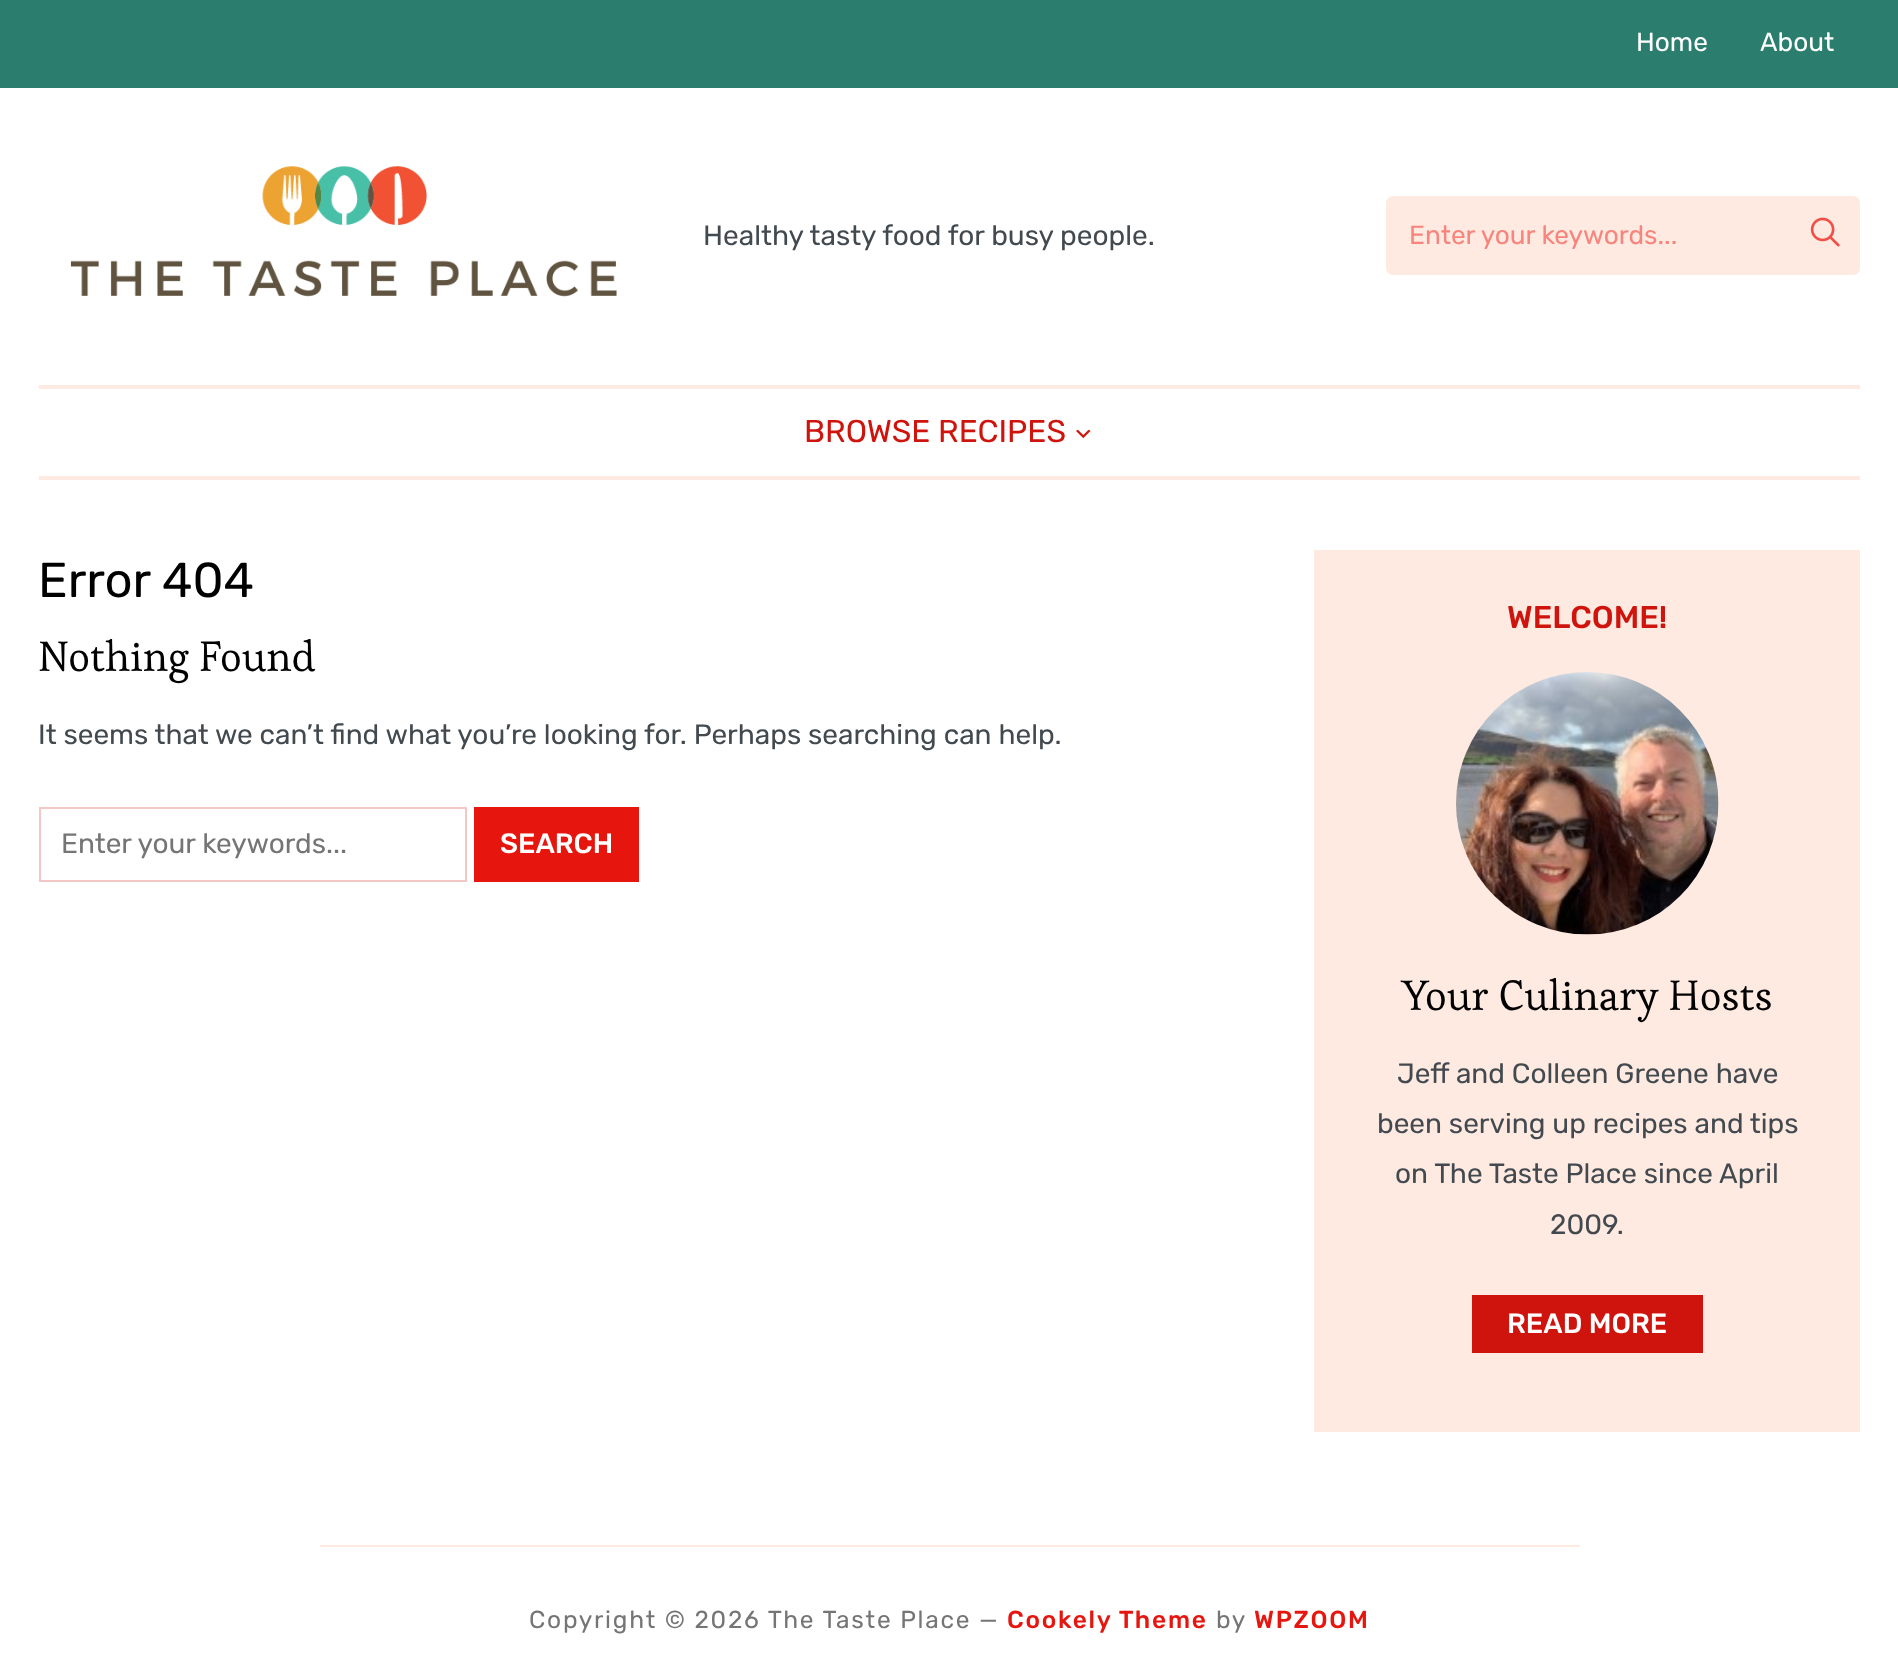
<!DOCTYPE html>
<meta charset="utf-8">
<style>body { margin: 0 } canvas { display: block }</style>
<canvas id="canvas" width="1898" height="1679"></canvas>
<img id="img1" src="images/1.png" hidden>
<img id="img2" src="images/2.png" hidden>
<img id="img3" src="images/3.png" hidden>
<img id="img4" src="images/4.png" hidden>
<script>
window.onload = function () {
    const canvas = document.getElementById('canvas');
    const context = canvas.getContext('2d');
    context.miterLimit = 4;
    context.fontKerning = 'normal';

    context.fillStyle = 'rgb(255, 255, 255)';
    context.fillRect(0, 0, 1898, 1679);
    context.fillStyle = 'rgb(43, 125, 109)';
    context.fillRect(0, 0, 1898, 88);
    context.drawImage(document.getElementById('img1'), 70, 166, 547, 131);
    context.fillStyle = 'rgb(254, 234, 224)';
    context.beginPath();
    context.roundRect(1386, 196, 474, 79, 7);
    context.fill();
    context.drawImage(document.getElementById('img2'), 1810, 217, 30, 30);
    context.fillRect(39, 385, 1821, 4);
    context.fillRect(39, 476, 1821, 4);
    context.drawImage(document.getElementById('img3'), 1076, 429, 15, 10);
    context.strokeStyle = 'rgb(243, 199, 197)';
    context.lineWidth = 2;
    context.strokeRect(40, 808, 426, 73);
    context.fillStyle = 'rgb(230, 22, 15)';
    context.fillRect(474, 807, 165, 75);
    context.fillStyle = 'rgb(254, 234, 224)';
    context.fillRect(1314, 550, 546, 882);
    context.drawImage(document.getElementById('img4'), 1456, 672, 263, 263);
    context.fillStyle = 'rgb(206, 20, 13)';
    context.fillRect(1472, 1295, 231, 58);
    context.fillStyle = 'rgb(254, 234, 224)';
    context.fillRect(320, 1545, 1260, 2);
    context.font = '26.25px Rubik';
    context.fillStyle = 'rgb(255, 255, 255)';
    context.fillText('Home', 1636, 51);
    context.fillText('About', 1760, 51);
    context.font = '28px Rubik';
    context.fillStyle = 'rgb(66, 74, 80)';
    context.fillText('Healthy tasty food for busy people.', 703, 245);
    context.font = '26.25px Rubik';
    context.fillStyle = 'rgb(247, 133, 126)';
    context.fillText('Enter your keywords...', 1409, 244);
    context.font = '31.5px Rubik';
    context.fillStyle = 'rgb(206, 20, 13)';
    context.fillText('BROWSE RECIPES', 804, 442);
    context.font = '49px Rubik';
    context.fillStyle = 'rgb(0, 0, 0)';
    context.fillText('Error 404', 38, 597);
    context.font = '42px Esteban';
    context.fillText('Nothing Found', 38, 671);
    context.font = '28px Rubik';
    context.fillStyle = 'rgb(66, 74, 80)';
    context.fillText('It seems that we can’t find what you’re looking for. Perhaps searching can help.', 38, 744);
    context.fillStyle = 'rgb(117, 117, 117)';
    context.fillText('Enter your keywords...', 61, 853);
    context.font = '500 28px Rubik';
    context.fillStyle = 'rgb(255, 255, 255)';
    context.fillText('SEARCH', 500, 853);
    context.font = '500 31.5px Rubik';
    context.fillStyle = 'rgb(206, 20, 13)';
    context.fillText('WELCOME!', 1507, 628);
    context.font = '42px Esteban';
    context.fillStyle = 'rgb(0, 0, 0)';
    context.fillText('Your Culinary Hosts', 1402, 1010);
    context.font = '28px Rubik';
    context.fillStyle = 'rgb(66, 74, 80)';
    context.fillText('Jeff and Colleen Greene have', 1397, 1083);
    context.fillText('been serving up recipes and tips', 1377, 1133);
    context.fillText('on The Taste Place since April', 1395, 1183);
    context.fillText('2009.', 1550, 1234);
    context.font = '500 28px Rubik';
    context.fillStyle = 'rgb(255, 255, 255)';
    context.fillText('READ MORE', 1507, 1333);
    context.letterSpacing = '1.75px';
    context.font = '24.5px Rubik';
    context.fillStyle = 'rgb(117, 117, 117)';
    context.fillText('Copyright © 2026 The Taste Place —', 529, 1628);
    context.font = '500 24.5px Rubik';
    context.fillStyle = 'rgb(230, 22, 15)';
    context.fillText('Cookely Theme', 1007, 1628);
    context.font = '24.5px Rubik';
    context.fillStyle = 'rgb(117, 117, 117)';
    context.fillText('by', 1216, 1628);
    context.font = '500 24.5px Rubik';
    context.fillStyle = 'rgb(230, 22, 15)';
    context.fillText('WPZOOM', 1254, 1628);
};
</script>
